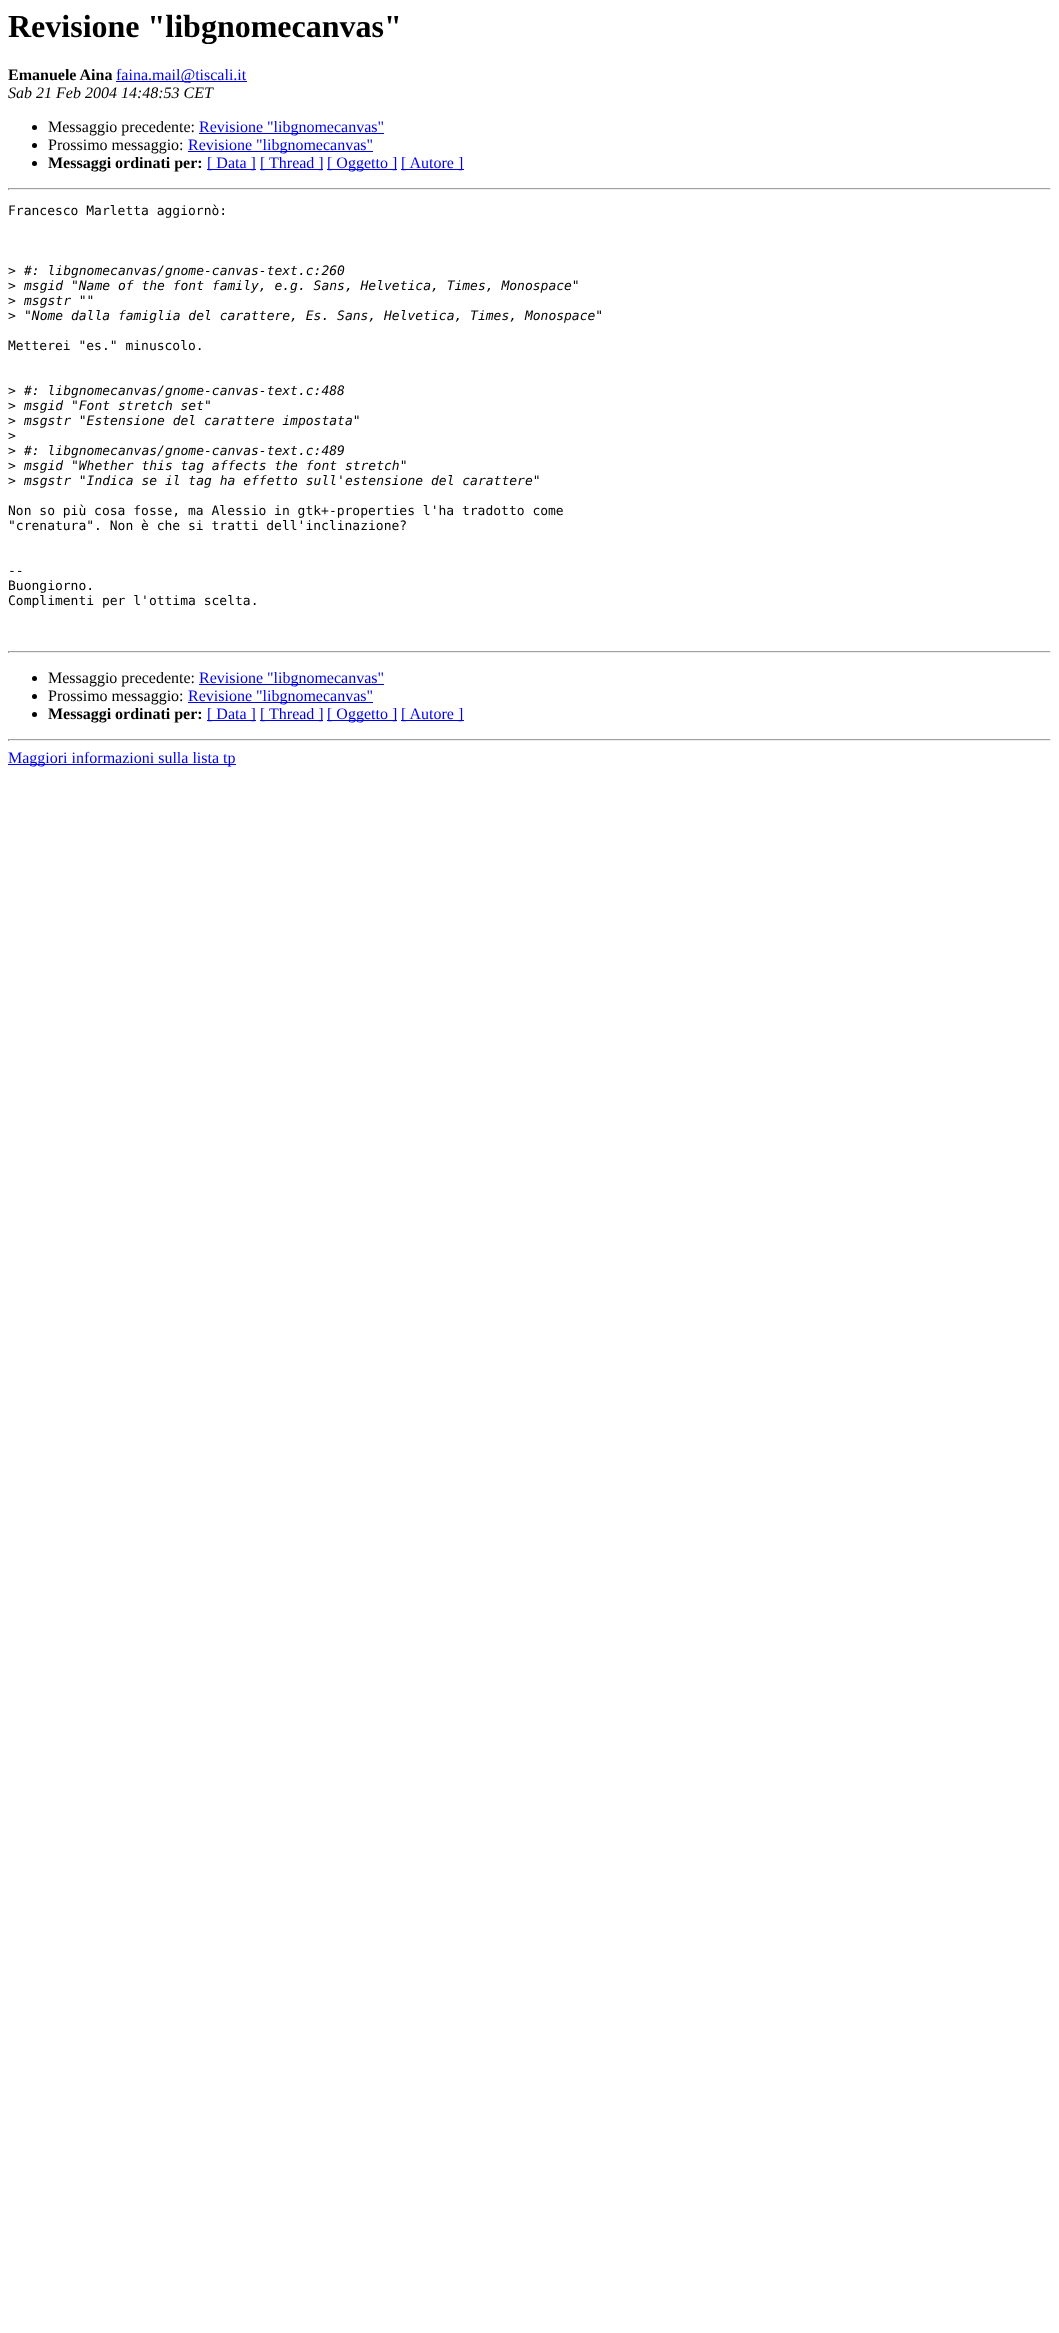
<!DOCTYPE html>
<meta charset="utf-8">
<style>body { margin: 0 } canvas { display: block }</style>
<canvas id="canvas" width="1059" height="2333"></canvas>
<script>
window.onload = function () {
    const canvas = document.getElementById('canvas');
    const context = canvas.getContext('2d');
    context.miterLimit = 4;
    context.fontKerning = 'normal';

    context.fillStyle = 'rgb(255, 255, 255)';
    context.fillRect(0, 0, 1059, 2333);
    context.fillStyle = 'rgb(0, 0, 238)';
    context.fillRect(116, 81, 131, 1);
    context.fillStyle = 'rgb(0, 0, 0)';
    context.beginPath();
    context.arc(34.5, 127.5, 2.5, 0, 2 * Math.PI);
    context.fill();
    context.fillStyle = 'rgb(0, 0, 238)';
    context.fillRect(199, 133, 185, 1);
    context.fillStyle = 'rgb(0, 0, 0)';
    context.beginPath();
    context.arc(34.5, 145.5, 2.5, 0, 2 * Math.PI);
    context.fill();
    context.fillStyle = 'rgb(0, 0, 238)';
    context.fillRect(188, 151, 185, 1);
    context.fillStyle = 'rgb(0, 0, 0)';
    context.beginPath();
    context.arc(34.5, 163.5, 2.5, 0, 2 * Math.PI);
    context.fill();
    context.fillStyle = 'rgb(0, 0, 238)';
    context.fillRect(207, 169, 49, 1);
    context.fillRect(260, 169, 63, 1);
    context.fillRect(327, 169, 70, 1);
    context.fillRect(401, 169, 63, 1);
    context.fillStyle = 'rgb(159, 159, 159)';
    context.fillRect(8, 188, 1043, 1);
    context.fillStyle = 'rgb(238, 238, 238)';
    context.fillRect(1050, 188, 1, 2);
    context.fillRect(8, 189, 1043, 1);
    context.fillStyle = 'rgb(159, 159, 159)';
    context.fillRect(8, 188, 1, 2);
    context.fillRect(8, 651, 1043, 1);
    context.fillStyle = 'rgb(238, 238, 238)';
    context.fillRect(1050, 651, 1, 2);
    context.fillRect(8, 652, 1043, 1);
    context.fillStyle = 'rgb(159, 159, 159)';
    context.fillRect(8, 651, 1, 2);
    context.fillStyle = 'rgb(0, 0, 0)';
    context.beginPath();
    context.arc(34.5, 678.5, 2.5, 0, 2 * Math.PI);
    context.fill();
    context.fillStyle = 'rgb(0, 0, 238)';
    context.fillRect(199, 684, 185, 1);
    context.fillStyle = 'rgb(0, 0, 0)';
    context.beginPath();
    context.arc(34.5, 696.5, 2.5, 0, 2 * Math.PI);
    context.fill();
    context.fillStyle = 'rgb(0, 0, 238)';
    context.fillRect(188, 702, 185, 1);
    context.fillStyle = 'rgb(0, 0, 0)';
    context.beginPath();
    context.arc(34.5, 714.5, 2.5, 0, 2 * Math.PI);
    context.fill();
    context.fillStyle = 'rgb(0, 0, 238)';
    context.fillRect(207, 720, 49, 1);
    context.fillRect(260, 720, 63, 1);
    context.fillRect(327, 720, 70, 1);
    context.fillRect(401, 720, 63, 1);
    context.fillStyle = 'rgb(159, 159, 159)';
    context.fillRect(8, 739, 1043, 1);
    context.fillStyle = 'rgb(238, 238, 238)';
    context.fillRect(1050, 739, 1, 2);
    context.fillRect(8, 740, 1043, 1);
    context.fillStyle = 'rgb(159, 159, 159)';
    context.fillRect(8, 739, 1, 2);
    context.fillStyle = 'rgb(0, 0, 238)';
    context.fillRect(8, 764, 228, 1);
    context.font = 'bold 32px Liberation Serif';
    context.fillStyle = 'rgb(0, 0, 0)';
    context.fillText('Revisione "libgnomecanvas"', 8, 37);
    context.font = 'bold 16px Liberation Serif';
    context.fillText('Emanuele Aina', 8, 80);
    context.font = '16px Liberation Serif';
    context.fillStyle = 'rgb(0, 0, 238)';
    context.fillText('faina.mail@tiscali.it', 116, 80);
    context.font = 'italic 16px Liberation Serif';
    context.fillStyle = 'rgb(0, 0, 0)';
    context.fillText('Sab 21 Feb 2004 14:48:53 CET', 8, 98);
    context.font = '16px Liberation Serif';
    context.fillText('Messaggio precedente:', 48, 132);
    context.fillStyle = 'rgb(0, 0, 238)';
    context.fillText('Revisione "libgnomecanvas"', 199, 132);
    context.fillStyle = 'rgb(0, 0, 0)';
    context.fillText('Prossimo messaggio:', 48, 150);
    context.fillStyle = 'rgb(0, 0, 238)';
    context.fillText('Revisione "libgnomecanvas"', 188, 150);
    context.font = 'bold 16px Liberation Serif';
    context.fillStyle = 'rgb(0, 0, 0)';
    context.fillText('Messaggi ordinati per:', 48, 168);
    context.font = '16px Liberation Serif';
    context.fillStyle = 'rgb(0, 0, 238)';
    context.fillText('[ Data ]', 207, 168);
    context.fillText('[ Thread ]', 260, 168);
    context.fillText('[ Oggetto ]', 327, 168);
    context.fillText('[ Autore ]', 401, 168);
    context.font = '13px DejaVu Sans Mono';
    context.fillStyle = 'rgb(0, 0, 0)';
    context.fillText('Francesco Marletta aggiornò:', 8, 215);
    context.fillText('>', 8, 275);
    context.font = 'italic 13px DejaVu Sans Mono';
    context.fillText('#: libgnomecanvas/gnome-canvas-text.c:260', 24, 275);
    context.font = '13px DejaVu Sans Mono';
    context.fillText('>', 8, 290);
    context.font = 'italic 13px DejaVu Sans Mono';
    context.fillText('msgid "Name of the font family, e.g. Sans, Helvetica, Times, Monospace"', 24, 290);
    context.font = '13px DejaVu Sans Mono';
    context.fillText('>', 8, 305);
    context.font = 'italic 13px DejaVu Sans Mono';
    context.fillText('msgstr ""', 24, 305);
    context.font = '13px DejaVu Sans Mono';
    context.fillText('>', 8, 320);
    context.font = 'italic 13px DejaVu Sans Mono';
    context.fillText('"Nome dalla famiglia del carattere, Es. Sans, Helvetica, Times, Monospace"', 24, 320);
    context.font = '13px DejaVu Sans Mono';
    context.fillText('Metterei "es." minuscolo.', 8, 350);
    context.fillText('>', 8, 395);
    context.font = 'italic 13px DejaVu Sans Mono';
    context.fillText('#: libgnomecanvas/gnome-canvas-text.c:488', 24, 395);
    context.font = '13px DejaVu Sans Mono';
    context.fillText('>', 8, 410);
    context.font = 'italic 13px DejaVu Sans Mono';
    context.fillText('msgid "Font stretch set"', 24, 410);
    context.font = '13px DejaVu Sans Mono';
    context.fillText('>', 8, 425);
    context.font = 'italic 13px DejaVu Sans Mono';
    context.fillText('msgstr "Estensione del carattere impostata"', 24, 425);
    context.font = '13px DejaVu Sans Mono';
    context.fillText('>', 8, 440);
    context.fillText('>', 8, 455);
    context.font = 'italic 13px DejaVu Sans Mono';
    context.fillText('#: libgnomecanvas/gnome-canvas-text.c:489', 24, 455);
    context.font = '13px DejaVu Sans Mono';
    context.fillText('>', 8, 470);
    context.font = 'italic 13px DejaVu Sans Mono';
    context.fillText('msgid "Whether this tag affects the font stretch"', 24, 470);
    context.font = '13px DejaVu Sans Mono';
    context.fillText('>', 8, 485);
    context.font = 'italic 13px DejaVu Sans Mono';
    context.fillText('msgstr "Indica se il tag ha effetto sull\'estensione del carattere"', 24, 485);
    context.font = '13px DejaVu Sans Mono';
    context.fillText('Non so più cosa fosse, ma Alessio in gtk+-properties l\'ha tradotto come', 8, 515);
    context.fillText('"crenatura". Non è che si tratti dell\'inclinazione?', 8, 530);
    context.fillText('--', 8, 575);
    context.fillText('Buongiorno.', 8, 590);
    context.fillText('Complimenti per l\'ottima scelta.', 8, 605);
    context.font = '16px Liberation Serif';
    context.fillText('Messaggio precedente:', 48, 683);
    context.fillStyle = 'rgb(0, 0, 238)';
    context.fillText('Revisione "libgnomecanvas"', 199, 683);
    context.fillStyle = 'rgb(0, 0, 0)';
    context.fillText('Prossimo messaggio:', 48, 701);
    context.fillStyle = 'rgb(0, 0, 238)';
    context.fillText('Revisione "libgnomecanvas"', 188, 701);
    context.font = 'bold 16px Liberation Serif';
    context.fillStyle = 'rgb(0, 0, 0)';
    context.fillText('Messaggi ordinati per:', 48, 719);
    context.font = '16px Liberation Serif';
    context.fillStyle = 'rgb(0, 0, 238)';
    context.fillText('[ Data ]', 207, 719);
    context.fillText('[ Thread ]', 260, 719);
    context.fillText('[ Oggetto ]', 327, 719);
    context.fillText('[ Autore ]', 401, 719);
    context.fillText('Maggiori informazioni sulla lista tp', 8, 763);
};
</script>
